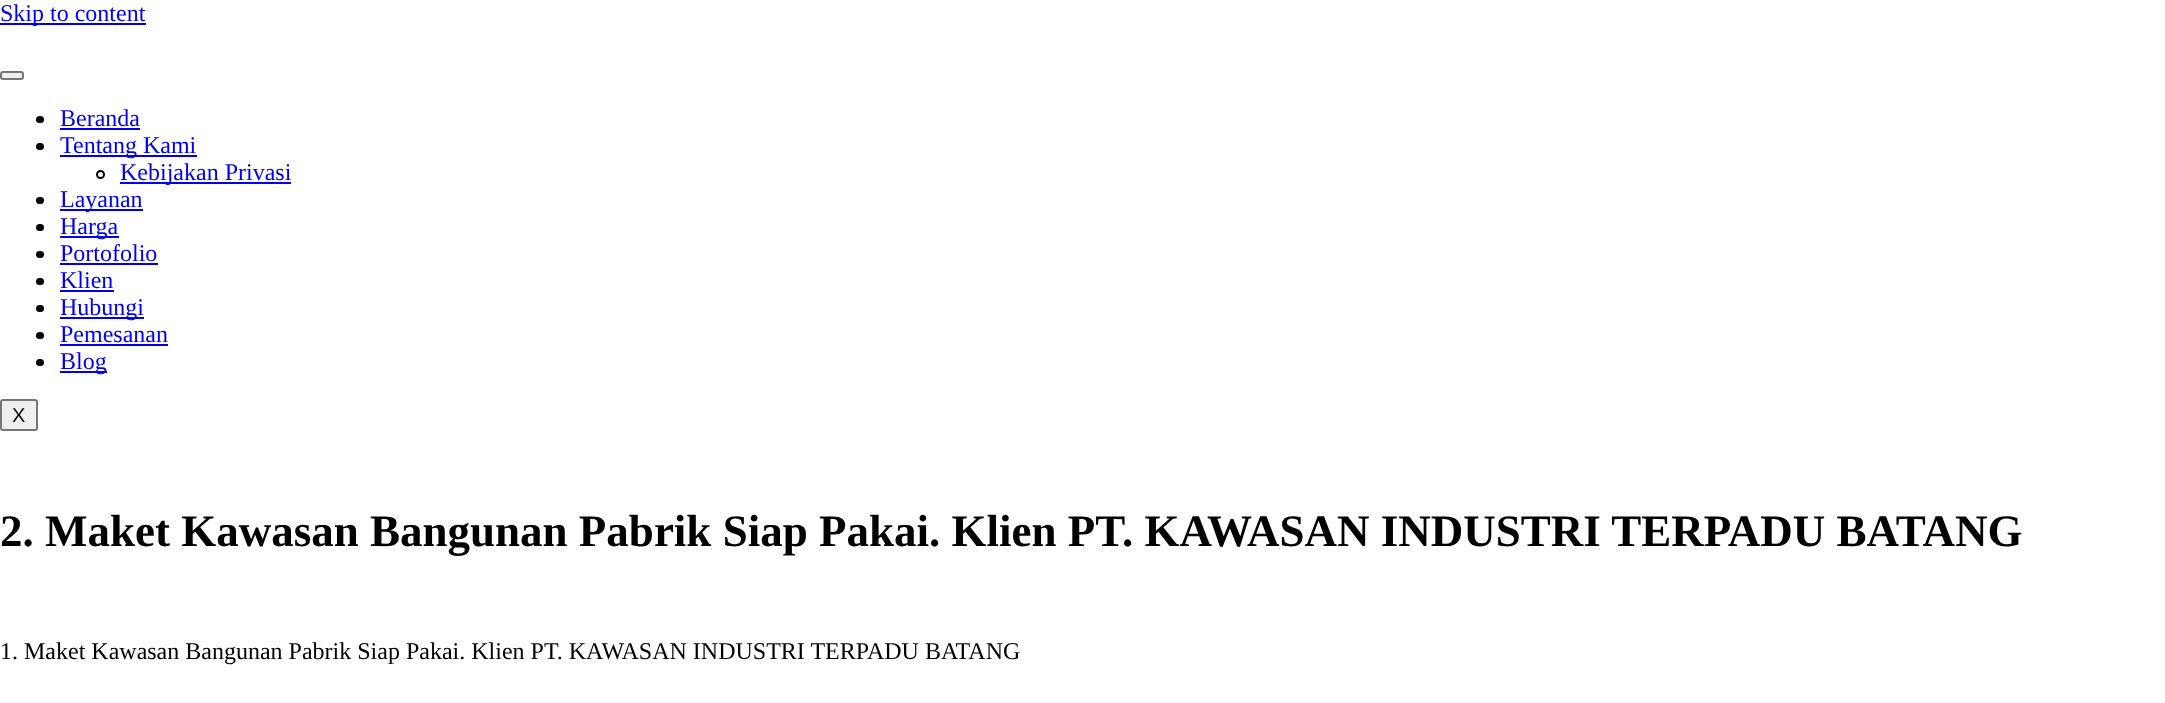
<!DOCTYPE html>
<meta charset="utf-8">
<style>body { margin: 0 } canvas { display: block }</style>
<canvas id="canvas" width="2165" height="703"></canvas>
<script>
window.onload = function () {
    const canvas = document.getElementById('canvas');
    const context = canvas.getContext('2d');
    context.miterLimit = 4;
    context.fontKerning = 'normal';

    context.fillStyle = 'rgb(255, 255, 255)';
    context.fillRect(0, 0, 2165, 703);
    context.fillStyle = 'rgb(0, 0, 238)';
    context.fillRect(0, 23, 146, 2);
    context.fillStyle = 'rgb(239, 239, 239)';
    context.beginPath();
    context.roundRect(1, 72, 22, 7, 2);
    context.fill();
    context.strokeStyle = 'rgb(118, 118, 118)';
    context.lineWidth = 2;
    context.stroke();
    context.fillStyle = 'rgb(0, 0, 0)';
    context.beginPath();
    context.roundRect(36, 116, 8, 7, 3.5);
    context.fill();
    context.fillStyle = 'rgb(0, 0, 238)';
    context.fillRect(60, 128, 80, 2);
    context.fillStyle = 'rgb(0, 0, 0)';
    context.beginPath();
    context.roundRect(36, 143, 8, 7, 3.5);
    context.fill();
    context.fillStyle = 'rgb(0, 0, 238)';
    context.fillRect(60, 155, 137, 2);
    context.beginPath();
    context.arc(100.5, 174.5, 3.5, 0, 2 * Math.PI);
    context.strokeStyle = 'rgb(0, 0, 0)';
    context.stroke();
    context.fillRect(120, 182, 171, 2);
    context.fillStyle = 'rgb(0, 0, 0)';
    context.beginPath();
    context.roundRect(36, 197, 8, 7, 3.5);
    context.fill();
    context.fillStyle = 'rgb(0, 0, 238)';
    context.fillRect(60, 209, 83, 2);
    context.fillStyle = 'rgb(0, 0, 0)';
    context.beginPath();
    context.roundRect(36, 224, 8, 7, 3.5);
    context.fill();
    context.fillStyle = 'rgb(0, 0, 238)';
    context.fillRect(60, 236, 59, 2);
    context.fillStyle = 'rgb(0, 0, 0)';
    context.beginPath();
    context.roundRect(36, 251, 8, 7, 3.5);
    context.fill();
    context.fillStyle = 'rgb(0, 0, 238)';
    context.fillRect(60, 263, 98, 2);
    context.fillStyle = 'rgb(0, 0, 0)';
    context.beginPath();
    context.roundRect(36, 278, 8, 7, 3.5);
    context.fill();
    context.fillStyle = 'rgb(0, 0, 238)';
    context.fillRect(60, 290, 54, 2);
    context.fillStyle = 'rgb(0, 0, 0)';
    context.beginPath();
    context.roundRect(36, 305, 8, 7, 3.5);
    context.fill();
    context.fillStyle = 'rgb(0, 0, 238)';
    context.fillRect(60, 317, 84, 2);
    context.fillStyle = 'rgb(0, 0, 0)';
    context.beginPath();
    context.roundRect(36, 332, 8, 7, 3.5);
    context.fill();
    context.fillStyle = 'rgb(0, 0, 238)';
    context.fillRect(60, 344, 108, 2);
    context.fillStyle = 'rgb(0, 0, 0)';
    context.beginPath();
    context.roundRect(36, 359, 8, 7, 3.5);
    context.fill();
    context.fillStyle = 'rgb(0, 0, 238)';
    context.fillRect(60, 371, 47, 2);
    context.fillStyle = 'rgb(239, 239, 239)';
    context.beginPath();
    context.roundRect(1, 400, 36, 30, 2);
    context.fill();
    context.strokeStyle = 'rgb(118, 118, 118)';
    context.stroke();
    context.font = '24px Liberation Serif';
    context.fillStyle = 'rgb(0, 0, 238)';
    context.fillText('Skip to content', 0, 21);
    context.fillText('Beranda', 60, 126);
    context.fillText('Tentang Kami', 60, 153);
    context.fillText('Kebijakan Privasi', 120, 180);
    context.fillText('Layanan', 60, 207);
    context.fillText('Harga', 60, 234);
    context.fillText('Portofolio', 60, 261);
    context.fillText('Klien', 60, 288);
    context.fillText('Hubungi', 60, 315);
    context.fillText('Pemesanan', 60, 342);
    context.fillText('Blog', 60, 369);
    context.font = '20px Liberation Sans';
    context.fillStyle = 'rgb(0, 0, 0)';
    context.fillText('X', 12, 422);
    context.font = 'bold 45px Liberation Serif';
    context.fillText('2. Maket Kawasan Bangunan Pabrik Siap Pakai. Klien PT. KAWASAN INDUSTRI TERPADU BATANG', 0, 546);
    context.font = '24px Liberation Serif';
    context.fillText('1. Maket Kawasan Bangunan Pabrik Siap Pakai. Klien PT. KAWASAN INDUSTRI TERPADU BATANG', 0, 659);
};
</script>
